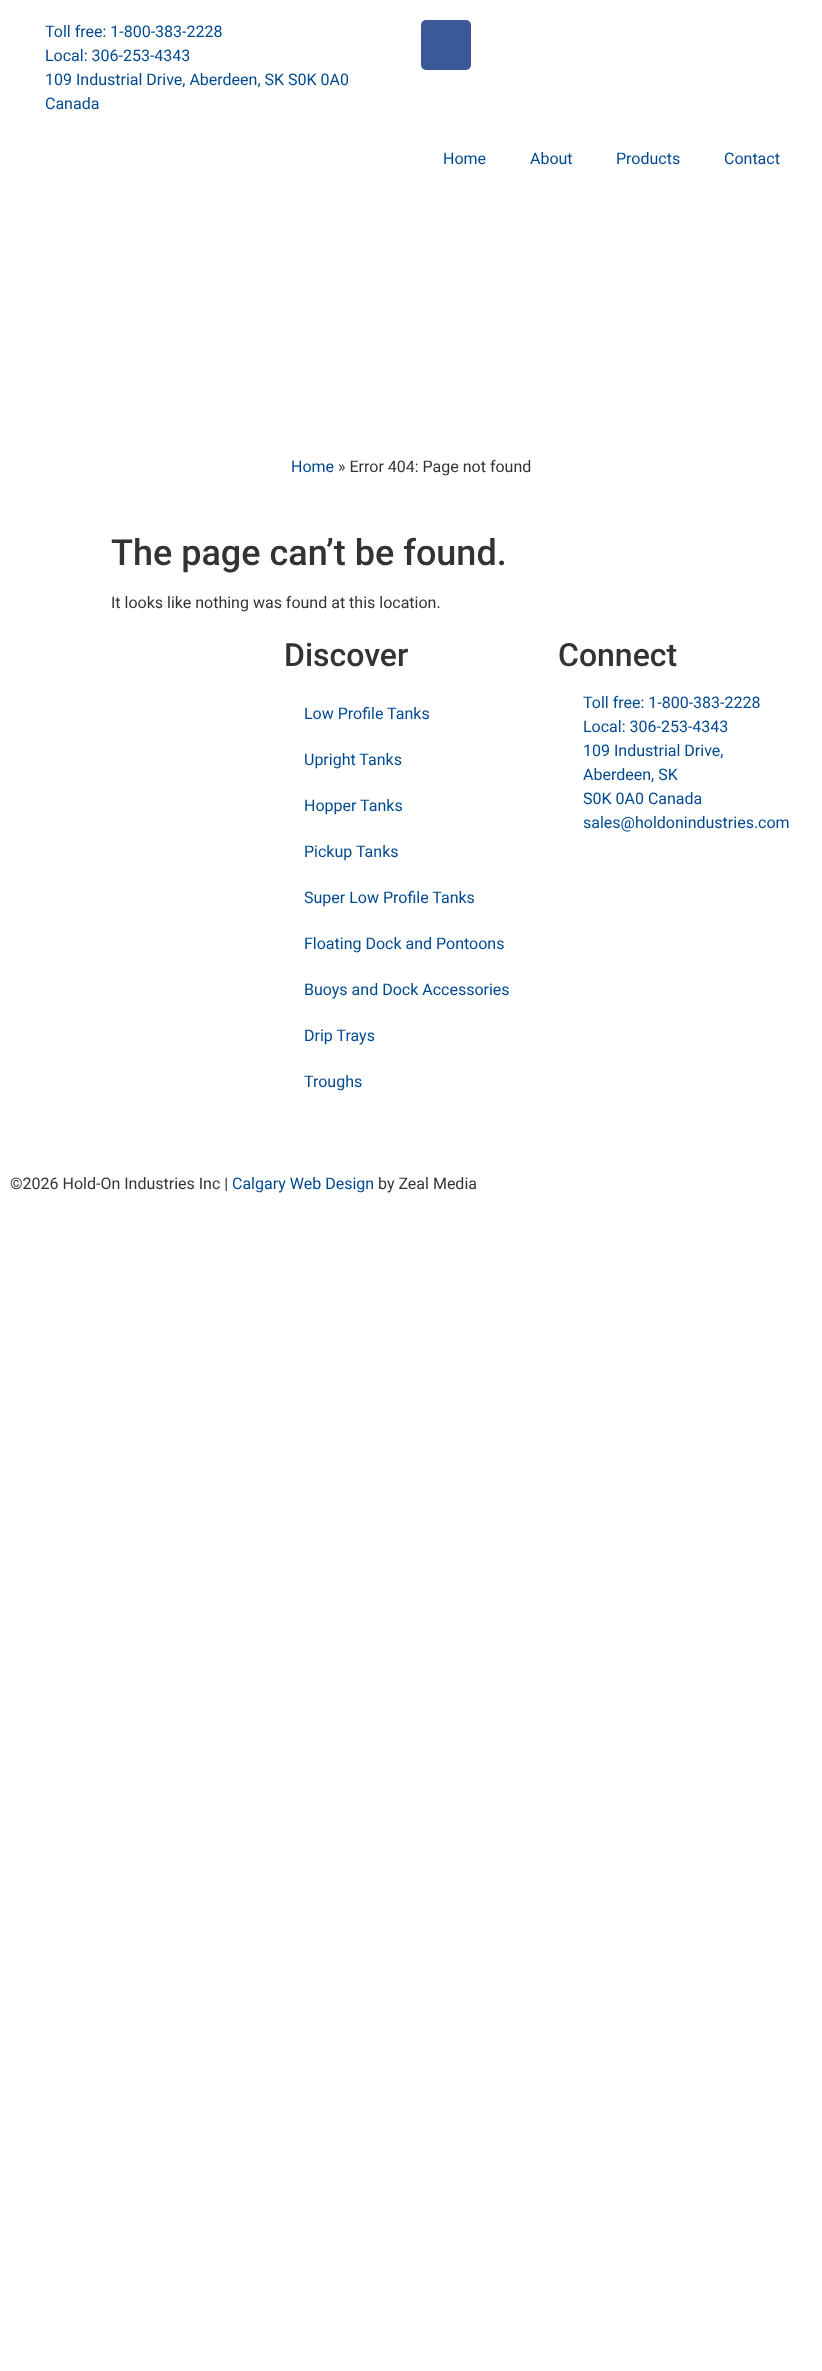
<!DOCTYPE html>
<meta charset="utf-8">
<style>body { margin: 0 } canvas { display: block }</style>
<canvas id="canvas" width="822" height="2371"></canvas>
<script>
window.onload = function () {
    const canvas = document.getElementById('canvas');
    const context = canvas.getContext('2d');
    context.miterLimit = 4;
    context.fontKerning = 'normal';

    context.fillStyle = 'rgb(255, 255, 255)';
    context.fillRect(0, 0, 822, 2371);
    context.fillStyle = 'rgb(59, 89, 152)';
    context.beginPath();
    context.roundRect(421, 20, 50, 50, 5);
    context.fill();
    context.font = '16px Roboto';
    context.fillStyle = 'rgb(0, 73, 144)';
    context.fillText('Toll free: 1-800-383-2228', 45, 37);
    context.fillText('Local: 306-253-4343', 45, 61);
    context.fillText('109 Industrial Drive, Aberdeen, SK S0K 0A0', 45, 85);
    context.fillText('Canada', 45, 109);
    context.fillText('Home', 443, 164);
    context.fillText('About', 530, 164);
    context.fillText('Products', 616, 164);
    context.fillText('Contact', 724, 164);
    context.fillText('Home', 291, 472);
    context.fillStyle = 'rgb(51, 51, 51)';
    context.fillText('» Error 404: Page not found', 338, 472);
    context.font = '500 36px Roboto';
    context.fillText('The page can’t be found.', 111, 565);
    context.font = '16px Roboto';
    context.fillText('It looks like nothing was found at this location.', 111, 608);
    context.font = '500 32px Roboto';
    context.fillText('Discover', 284, 666);
    context.font = '16px Roboto';
    context.fillStyle = 'rgb(0, 73, 144)';
    context.fillText('Low Profile Tanks', 304, 719);
    context.fillText('Upright Tanks', 304, 765);
    context.fillText('Hopper Tanks', 304, 811);
    context.fillText('Pickup Tanks', 304, 857);
    context.fillText('Super Low Profile Tanks', 304, 903);
    context.fillText('Floating Dock and Pontoons', 304, 949);
    context.fillText('Buoys and Dock Accessories', 304, 995);
    context.fillText('Drip Trays', 304, 1041);
    context.fillText('Troughs', 304, 1087);
    context.font = '500 32px Roboto';
    context.fillStyle = 'rgb(51, 51, 51)';
    context.fillText('Connect', 558, 666);
    context.font = '16px Roboto';
    context.fillStyle = 'rgb(0, 73, 144)';
    context.fillText('Toll free: 1-800-383-2228', 583, 708);
    context.fillText('Local: 306-253-4343', 583, 732);
    context.fillText('109 Industrial Drive,', 583, 756);
    context.fillText('Aberdeen, SK', 583, 780);
    context.fillText('S0K 0A0 Canada', 583, 804);
    context.fillText('sales@holdonindustries.com', 583, 828);
    context.fillStyle = 'rgb(51, 51, 51)';
    context.fillText('©2026 Hold-On Industries Inc |', 10, 1189);
    context.fillStyle = 'rgb(0, 73, 144)';
    context.fillText('Calgary Web Design', 232, 1189);
    context.fillStyle = 'rgb(51, 51, 51)';
    context.fillText('by Zeal Media', 378, 1189);
};
</script>
